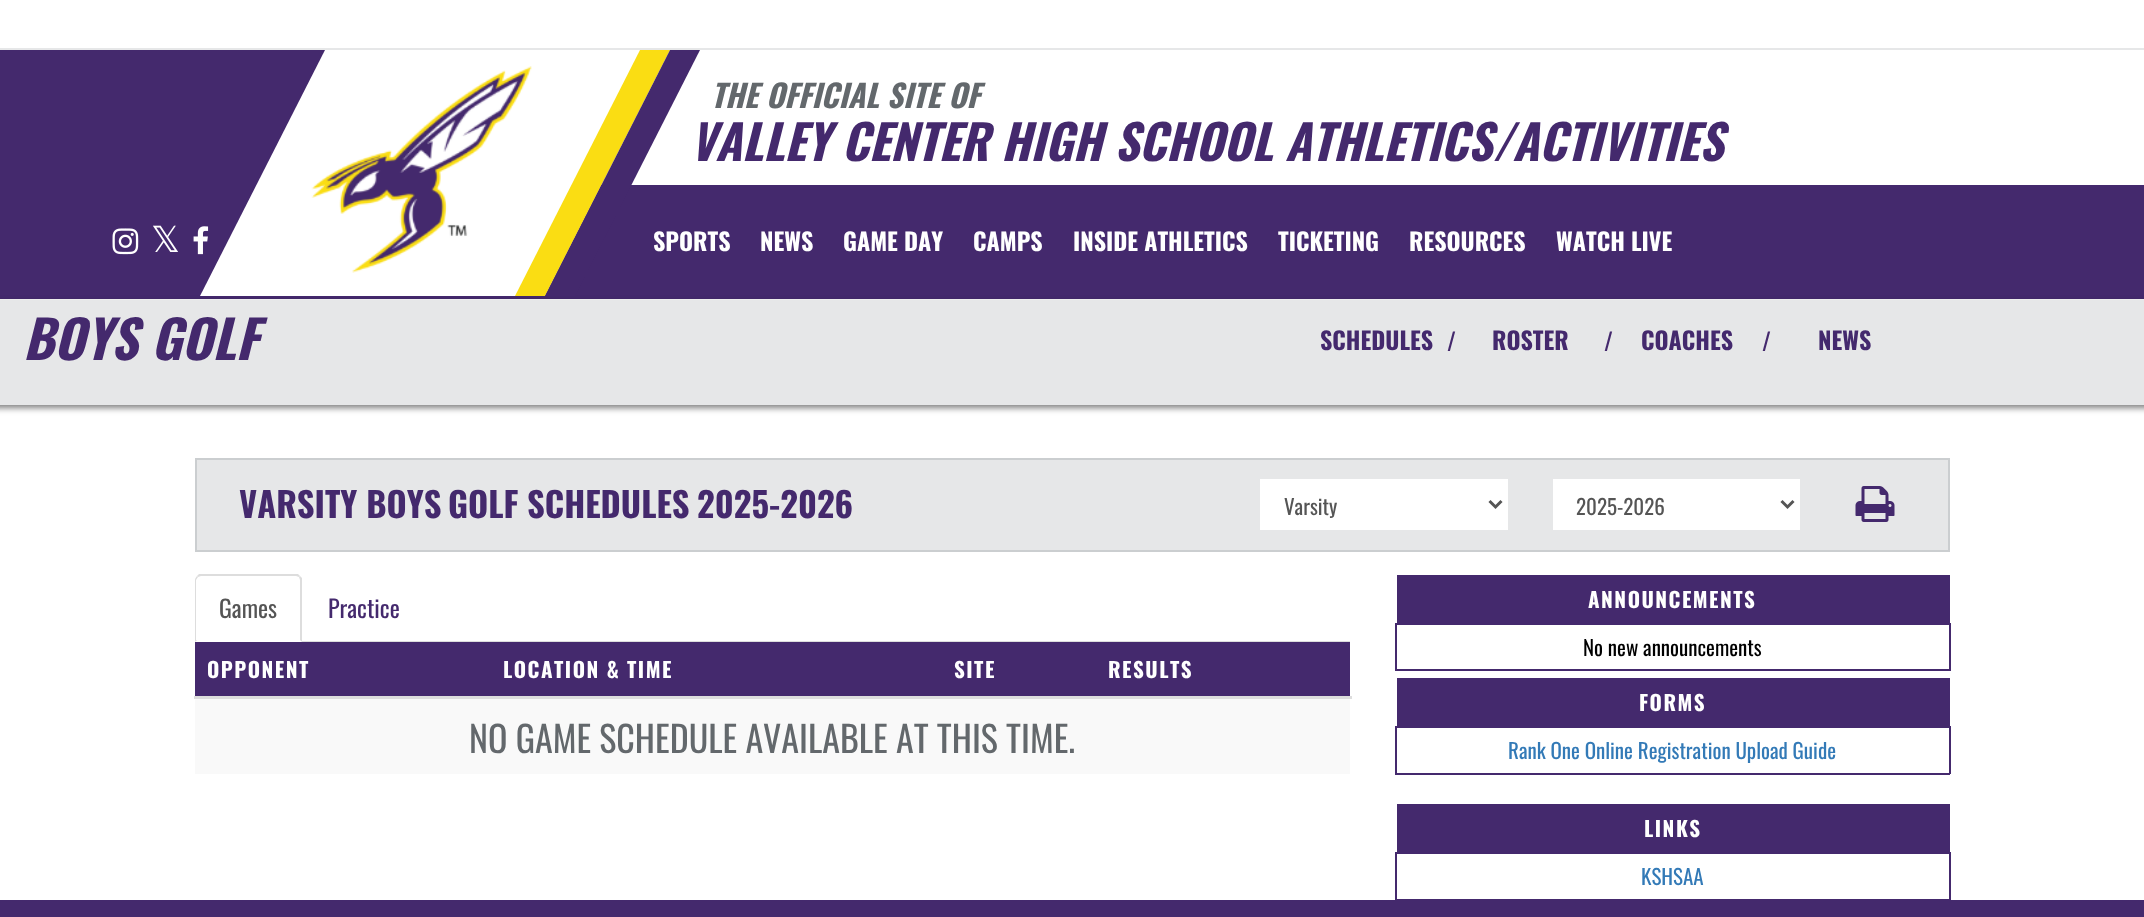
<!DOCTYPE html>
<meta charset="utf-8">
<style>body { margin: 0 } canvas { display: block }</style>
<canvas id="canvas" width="2144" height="917"></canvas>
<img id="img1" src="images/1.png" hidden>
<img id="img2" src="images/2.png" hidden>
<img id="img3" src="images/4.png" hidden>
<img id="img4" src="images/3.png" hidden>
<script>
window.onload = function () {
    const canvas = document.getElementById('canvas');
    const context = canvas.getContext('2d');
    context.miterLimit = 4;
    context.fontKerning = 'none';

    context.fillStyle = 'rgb(255, 255, 255)';
    context.fillRect(0, 0, 2144, 917);
    context.fillStyle = 'rgb(230, 231, 232)';
    context.fillRect(0, 48, 2144, 2);
    context.fillStyle = 'rgb(68, 41, 109)';
    context.fillRect(0, 50, 325, 135);
    context.fillRect(0, 185, 2144, 114);
    context.drawImage(document.getElementById('img1'), 112, 228, 27, 27);
    context.drawImage(document.getElementById('img2'), 193, 226, 16, 29);
    context.fillStyle = 'rgba(0, 0, 0, 0.5)';
    context.filter = 'blur(3px)';
    context.beginPath();
    context.rect(-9, 303, 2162, 105);
    context.fill();
    context.filter = 'none';
    context.fillStyle = 'rgb(255, 255, 255)';
    context.beginPath();
    context.moveTo(325, 50);
    context.lineTo(670, 50);
    context.lineTo(545, 296);
    context.lineTo(200, 296);
    context.closePath();
    context.fill();
    context.fillStyle = 'rgb(230, 231, 232)';
    context.fillRect(0, 300, 2144, 105);
    context.beginPath();
    context.rect(196, 459, 1753, 92);
    context.fill();
    context.strokeStyle = 'rgb(203, 206, 208)';
    context.lineWidth = 2;
    context.stroke();
    context.fillStyle = 'rgb(255, 255, 255)';
    context.fillRect(1260, 479, 248, 51);
    context.beginPath();
    context.moveTo(1489.5, 501);
    context.lineTo(1495.5, 507);
    context.lineTo(1501.5, 501);
    context.strokeStyle = 'rgb(85, 85, 85)';
    context.lineWidth = 3;
    context.stroke();
    context.fillRect(1553, 479, 247, 51);
    context.beginPath();
    context.moveTo(1781.5, 501);
    context.lineTo(1787.5, 507);
    context.lineTo(1793.5, 501);
    context.stroke();
    context.drawImage(document.getElementById('img3'), 1855, 486, 40, 36);
    context.fillStyle = 'rgb(221, 221, 221)';
    context.fillRect(302, 641, 1048, 1);
    context.beginPath();
    context.moveTo(201, 576);
    context.lineTo(198, 577);
    context.lineTo(197, 576);
    context.lineTo(199, 574);
    context.lineTo(298, 574);
    context.lineTo(300, 576);
    context.lineTo(299, 577);
    context.lineTo(296, 576);
    context.closePath();
    context.fill();
    context.beginPath();
    context.moveTo(302, 578);
    context.lineTo(302, 642);
    context.lineTo(300, 640);
    context.lineTo(300, 580);
    context.lineTo(299, 577);
    context.lineTo(300, 576);
    context.closePath();
    context.fill();
    context.beginPath();
    context.moveTo(195, 642);
    context.lineTo(197, 640);
    context.lineTo(196, 640);
    context.lineTo(196, 580);
    context.lineTo(198, 577);
    context.lineTo(197, 576);
    context.bezierCurveTo(196, 577, 195, 579, 195, 580);
    context.closePath();
    context.fill();
    context.fillStyle = 'rgb(68, 41, 109)';
    context.fillRect(195, 642, 1155, 54);
    context.fillStyle = 'rgb(221, 221, 221)';
    context.fillRect(194, 696, 1158, 3);
    context.fillStyle = 'rgb(249, 249, 249)';
    context.fillRect(195, 699, 1155, 75);
    context.fillStyle = 'rgb(68, 41, 109)';
    context.fillRect(1397, 575, 553, 48);
    context.fillRect(1395, 623, 555, 2);
    context.fillRect(1949, 623, 2, 48);
    context.fillRect(1395, 669, 555, 2);
    context.fillRect(1395, 623, 2, 48);
    context.fillRect(1397, 678, 553, 48);
    context.fillRect(1395, 726, 555, 2);
    context.fillRect(1949, 726, 2, 48);
    context.fillRect(1395, 773, 555, 2);
    context.fillRect(1395, 726, 2, 48);
    context.fillRect(1397, 804, 553, 48);
    context.fillRect(1395, 852, 555, 2);
    context.fillRect(1949, 852, 2, 48);
    context.fillRect(1395, 899, 555, 1);
    context.fillRect(1395, 852, 2, 48);
    context.fillRect(0, 900, 2144, 17);
    context.font = 'italic bold 31.25px Oswald';
    context.fillStyle = 'rgb(99, 104, 108)';
    context.fillText('THE OFFICIAL SITE OF', 711, 108);
    context.font = 'italic bold 48px Oswald';
    context.fillStyle = 'rgb(68, 41, 109)';
    context.fillText('VALLEY CENTER HIGH SCHOOL ATHLETICS/ACTIVITIES', 690, 161);
    context.font = '36px DejaVu Sans';
    context.fillStyle = 'rgb(255, 255, 255)';
    context.fillText('𝕏', 151, 252);
    context.font = 'bold 24px Oswald';
    context.fillText('SPORTS', 653, 251);
    context.fillStyle = 'rgb(250, 221, 19)';
    context.beginPath();
    context.moveTo(640, 50);
    context.lineTo(670, 50);
    context.lineTo(545, 296);
    context.lineTo(515, 296);
    context.closePath();
    context.fill();
    context.fillStyle = 'rgb(68, 41, 109)';
    context.beginPath();
    context.moveTo(670, 50);
    context.lineTo(700, 50);
    context.lineTo(575, 296);
    context.lineTo(545, 296);
    context.closePath();
    context.fill();
    context.drawImage(document.getElementById('img4'), 311, 66, 221, 207);
    context.fillStyle = 'rgb(255, 255, 255)';
    context.fillText('NEWS', 760, 251);
    context.fillText('GAME DAY', 843, 251);
    context.fillText('CAMPS', 973, 251);
    context.fillText('INSIDE ATHLETICS', 1073, 251);
    context.fillText('TICKETING', 1278, 251);
    context.fillText('RESOURCES', 1409, 251);
    context.fillText('WATCH LIVE', 1556, 251);
    context.font = 'italic bold 52.5px Oswald';
    context.fillStyle = 'rgb(68, 41, 109)';
    context.fillText('BOYS GOLF', 23, 360);
    context.font = 'bold 24px Oswald';
    context.fillText('SCHEDULES', 1320, 350);
    context.font = '24px Oswald';
    context.fillText('/', 1447, 351);
    context.font = 'bold 24px Oswald';
    context.fillText('ROSTER', 1492, 350);
    context.font = '24px Oswald';
    context.fillText('/', 1604, 351);
    context.font = 'bold 24px Oswald';
    context.fillText('COACHES', 1641, 350);
    context.font = '24px Oswald';
    context.fillText('/', 1762, 351);
    context.font = 'bold 24px Oswald';
    context.fillText('NEWS', 1818, 350);
    context.font = 'bold 34.5px Oswald';
    context.fillText('VARSITY BOYS', 239, 518);
    context.fillText('GOLF', 448, 518);
    context.fillText('SCHEDULES', 527, 518);
    context.fillText('2025-2026', 697, 518);
    context.font = '21px Oswald';
    context.fillStyle = 'rgb(85, 85, 85)';
    context.fillText('Varsity', 1284, 515);
    context.fillText('2025-2026', 1576, 515);
    context.font = '24px Oswald';
    context.fillText('Games', 219, 618);
    context.fillStyle = 'rgb(68, 41, 109)';
    context.fillText('Practice', 328, 618);
    context.letterSpacing = '1.5px';
    context.font = 'bold 21px Oswald';
    context.fillStyle = 'rgb(255, 255, 255)';
    context.fillText('OPPONENT', 207, 678);
    context.fillText('LOCATION & TIME', 503, 678);
    context.fillText('SITE', 954, 678);
    context.fillText('RESULTS', 1108, 678);
    context.letterSpacing = '0px';
    context.font = '36px Oswald';
    context.fillStyle = 'rgb(99, 104, 108)';
    context.fillText('NO GAME SCHEDULE AVAILABLE AT THIS TIME.', 469, 753);
    context.letterSpacing = '1.5px';
    context.font = 'bold 21px Oswald';
    context.fillStyle = 'rgb(255, 255, 255)';
    context.fillText('ANNOUNCEMENTS', 1588, 608);
    context.letterSpacing = '0px';
    context.font = '21px Oswald';
    context.fillStyle = 'rgb(0, 0, 0)';
    context.fillText('No new announcements', 1583, 656);
    context.letterSpacing = '1.5px';
    context.font = 'bold 21px Oswald';
    context.fillStyle = 'rgb(255, 255, 255)';
    context.fillText('FORMS', 1639, 711);
    context.letterSpacing = '0px';
    context.font = '21px Oswald';
    context.fillStyle = 'rgb(51, 122, 183)';
    context.fillText('Rank One Online Registration Upload Guide', 1508, 759);
    context.letterSpacing = '1.5px';
    context.font = 'bold 21px Oswald';
    context.fillStyle = 'rgb(255, 255, 255)';
    context.fillText('LINKS', 1644, 837);
    context.letterSpacing = '0px';
    context.font = '21px Oswald';
    context.fillStyle = 'rgb(51, 122, 183)';
    context.fillText('KSHSAA', 1641, 885);
};
</script>
